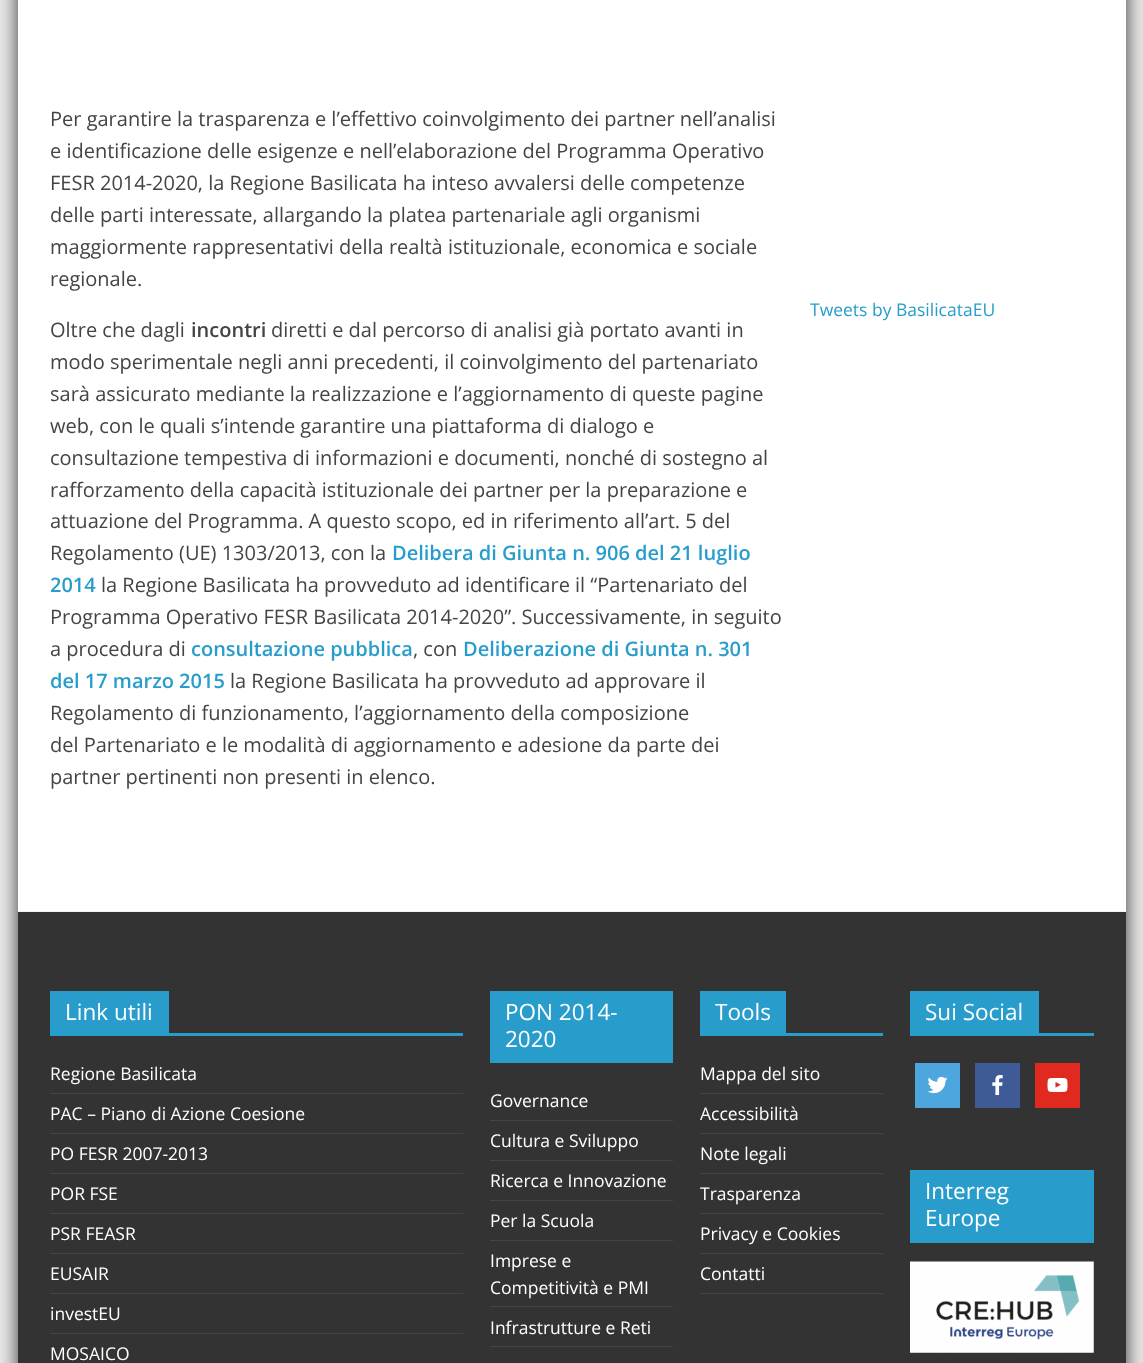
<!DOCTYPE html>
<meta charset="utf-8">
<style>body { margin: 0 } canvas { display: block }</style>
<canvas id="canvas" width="1143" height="1363"></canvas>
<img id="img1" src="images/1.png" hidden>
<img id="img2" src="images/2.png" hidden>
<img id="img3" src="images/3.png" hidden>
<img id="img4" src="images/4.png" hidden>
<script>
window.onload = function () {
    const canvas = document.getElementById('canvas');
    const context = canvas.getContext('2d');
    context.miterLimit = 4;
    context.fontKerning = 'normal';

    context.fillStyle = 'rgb(234, 234, 234)';
    context.fillRect(0, 0, 1143, 1363);
    context.fillStyle = 'rgb(51, 51, 51)';
    context.filter = 'blur(10px)';
    context.beginPath();
    context.rect(18, -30, 1108, 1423);
    context.fill();
    context.filter = 'none';
    context.fillStyle = 'rgb(255, 255, 255)';
    context.fillRect(18, 0, 1108, 911);
    context.fillStyle = 'rgb(51, 51, 51)';
    context.fillRect(18, 912, 1108, 451);
    context.fillStyle = 'rgb(242, 242, 242)';
    context.fillRect(18, 911, 1108, 1);
    context.fillStyle = 'rgb(40, 157, 204)';
    context.fillRect(50, 1033, 413, 3);
    context.fillRect(50, 991, 119, 42);
    context.fillStyle = 'rgb(68, 68, 68)';
    context.fillRect(50, 1093, 413, 1);
    context.fillRect(50, 1133, 413, 1);
    context.fillRect(50, 1173, 413, 1);
    context.fillRect(50, 1213, 413, 1);
    context.fillRect(50, 1253, 413, 1);
    context.fillRect(50, 1293, 413, 1);
    context.fillRect(50, 1333, 413, 1);
    context.fillStyle = 'rgb(40, 157, 204)';
    context.fillRect(490, 991, 183, 72);
    context.fillStyle = 'rgb(68, 68, 68)';
    context.fillRect(490, 1120, 183, 1);
    context.fillRect(490, 1160, 183, 1);
    context.fillRect(490, 1200, 183, 1);
    context.fillRect(490, 1240, 183, 1);
    context.fillRect(490, 1306, 183, 1);
    context.fillRect(490, 1346, 183, 1);
    context.fillStyle = 'rgb(40, 157, 204)';
    context.fillRect(700, 1033, 183, 3);
    context.fillRect(700, 991, 86, 42);
    context.fillStyle = 'rgb(68, 68, 68)';
    context.fillRect(700, 1093, 183, 1);
    context.fillRect(700, 1133, 183, 1);
    context.fillRect(700, 1173, 183, 1);
    context.fillRect(700, 1213, 183, 1);
    context.fillRect(700, 1253, 183, 1);
    context.fillRect(700, 1293, 183, 1);
    context.fillStyle = 'rgb(40, 157, 204)';
    context.fillRect(910, 1033, 184, 3);
    context.fillRect(910, 991, 129, 42);
    context.fillStyle = 'rgb(77, 167, 222)';
    context.fillRect(915, 1063, 45, 45);
    context.drawImage(document.getElementById('img1'), 927, 1076, 21, 18);
    context.fillStyle = 'rgb(62, 91, 152)';
    context.fillRect(975, 1063, 45, 45);
    context.drawImage(document.getElementById('img2'), 992, 1075, 11, 20);
    context.fillStyle = 'rgb(224, 42, 32)';
    context.fillRect(1035, 1063, 45, 45);
    context.drawImage(document.getElementById('img3'), 1047, 1078, 21, 14);
    context.fillStyle = 'rgb(40, 157, 204)';
    context.fillRect(910, 1170, 184, 73);
    context.drawImage(document.getElementById('img4'), 910, 1261, 184, 92);
    context.font = '20px Open Sans';
    context.fillStyle = 'rgb(68, 68, 68)';
    context.fillText('Per garantire la trasparenza e l’effettivo coinvolgimento dei partner nell’analisi', 50, 126);
    context.fillText('e identificazione delle esigenze e nell’elaborazione del Programma Operativo', 50, 158);
    context.fillText('FESR 2014-2020, la Regione Basilicata ha inteso avvalersi delle competenze', 50, 190);
    context.fillText('delle parti interessate, allargando la platea partenariale agli organismi', 50, 222);
    context.fillText('maggiormente rappresentativi della realtà istituzionale, economica e sociale', 50, 254);
    context.fillText('regionale.', 50, 286);
    context.fillText('Oltre che dagli', 50, 337);
    context.font = '600 20px Open Sans';
    context.fillText('incontri', 191, 337);
    context.font = '20px Open Sans';
    context.fillText('diretti e dal percorso di analisi già portato avanti in', 271, 337);
    context.fillText('modo sperimentale negli anni precedenti, il coinvolgimento del partenariato', 50, 369);
    context.fillText('sarà assicurato mediante la realizzazione e l’aggiornamento di queste pagine', 50, 401);
    context.fillText('web, con le quali s’intende garantire una piattaforma di dialogo e', 50, 433);
    context.fillText('consultazione tempestiva di informazioni e documenti, nonché di sostegno al', 50, 465);
    context.fillText('rafforzamento della capacità istituzionale dei partner per la preparazione e', 50, 497);
    context.fillText('attuazione del Programma. A questo scopo, ed in riferimento all’art. 5 del', 50, 528);
    context.fillText('Regolamento (UE) 1303/2013, con la', 50, 560);
    context.font = '600 20px Open Sans';
    context.fillStyle = 'rgb(40, 157, 204)';
    context.fillText('Delibera di Giunta n. 906 del 21 luglio', 392, 560);
    context.fillText('2014', 50, 592);
    context.font = '20px Open Sans';
    context.fillStyle = 'rgb(68, 68, 68)';
    context.fillText('la Regione Basilicata ha provveduto ad identificare il “Partenariato del', 101, 592);
    context.fillText('Programma Operativo FESR Basilicata 2014-2020”. Successivamente, in seguito', 50, 624);
    context.fillText('a procedura di', 50, 656);
    context.font = '600 20px Open Sans';
    context.fillStyle = 'rgb(40, 157, 204)';
    context.fillText('consultazione pubblica', 191, 656);
    context.font = '20px Open Sans';
    context.fillStyle = 'rgb(68, 68, 68)';
    context.fillText(', con', 413, 656);
    context.font = '600 20px Open Sans';
    context.fillStyle = 'rgb(40, 157, 204)';
    context.fillText('Deliberazione di Giunta n. 301', 463, 656);
    context.fillText('del 17 marzo 2015', 50, 688);
    context.font = '20px Open Sans';
    context.fillStyle = 'rgb(68, 68, 68)';
    context.fillText('la Regione Basilicata ha provveduto ad approvare il', 230, 688);
    context.fillText('Regolamento di funzionamento, l’aggiornamento della composizione', 50, 720);
    context.fillText('del Partenariato e le modalità di aggiornamento e adesione da parte dei', 50, 752);
    context.fillText('partner pertinenti non presenti in elenco.', 50, 784);
    context.font = '17.5px Open Sans';
    context.fillStyle = 'rgb(40, 157, 204)';
    context.fillText('Tweets by BasilicataEU', 810, 316);
    context.font = '22.5px Open Sans';
    context.fillStyle = 'rgb(255, 255, 255)';
    context.fillText('Link utili', 65, 1020);
    context.font = '17.5px Open Sans';
    context.fillText('Regione Basilicata', 50, 1080);
    context.fillText('PAC – Piano di Azione Coesione', 50, 1120);
    context.fillText('PO FESR 2007-2013', 50, 1160);
    context.fillText('POR FSE', 50, 1200);
    context.fillText('PSR FEASR', 50, 1240);
    context.fillText('EUSAIR', 50, 1280);
    context.fillText('investEU', 50, 1320);
    context.fillText('MOSAICO', 50, 1360);
    context.font = '22.5px Open Sans';
    context.fillText('PON 2014-', 505, 1020);
    context.fillText('2020', 505, 1047);
    context.font = '17.5px Open Sans';
    context.fillText('Governance', 490, 1107);
    context.fillText('Cultura e Sviluppo', 490, 1147);
    context.fillText('Ricerca e Innovazione', 490, 1187);
    context.fillText('Per la Scuola', 490, 1227);
    context.fillText('Imprese e', 490, 1267);
    context.fillText('Competitività e PMI', 490, 1294);
    context.fillText('Infrastrutture e Reti', 490, 1334);
    context.font = '22.5px Open Sans';
    context.fillText('Tools', 715, 1020);
    context.font = '17.5px Open Sans';
    context.fillText('Mappa del sito', 700, 1080);
    context.fillText('Accessibilità', 700, 1120);
    context.fillText('Note legali', 700, 1160);
    context.fillText('Trasparenza', 700, 1200);
    context.fillText('Privacy e Cookies', 700, 1240);
    context.fillText('Contatti', 700, 1280);
    context.font = '22.5px Open Sans';
    context.fillText('Sui Social', 925, 1020);
    context.fillText('Interreg', 925, 1199);
    context.fillText('Europe', 925, 1226);
};
</script>
